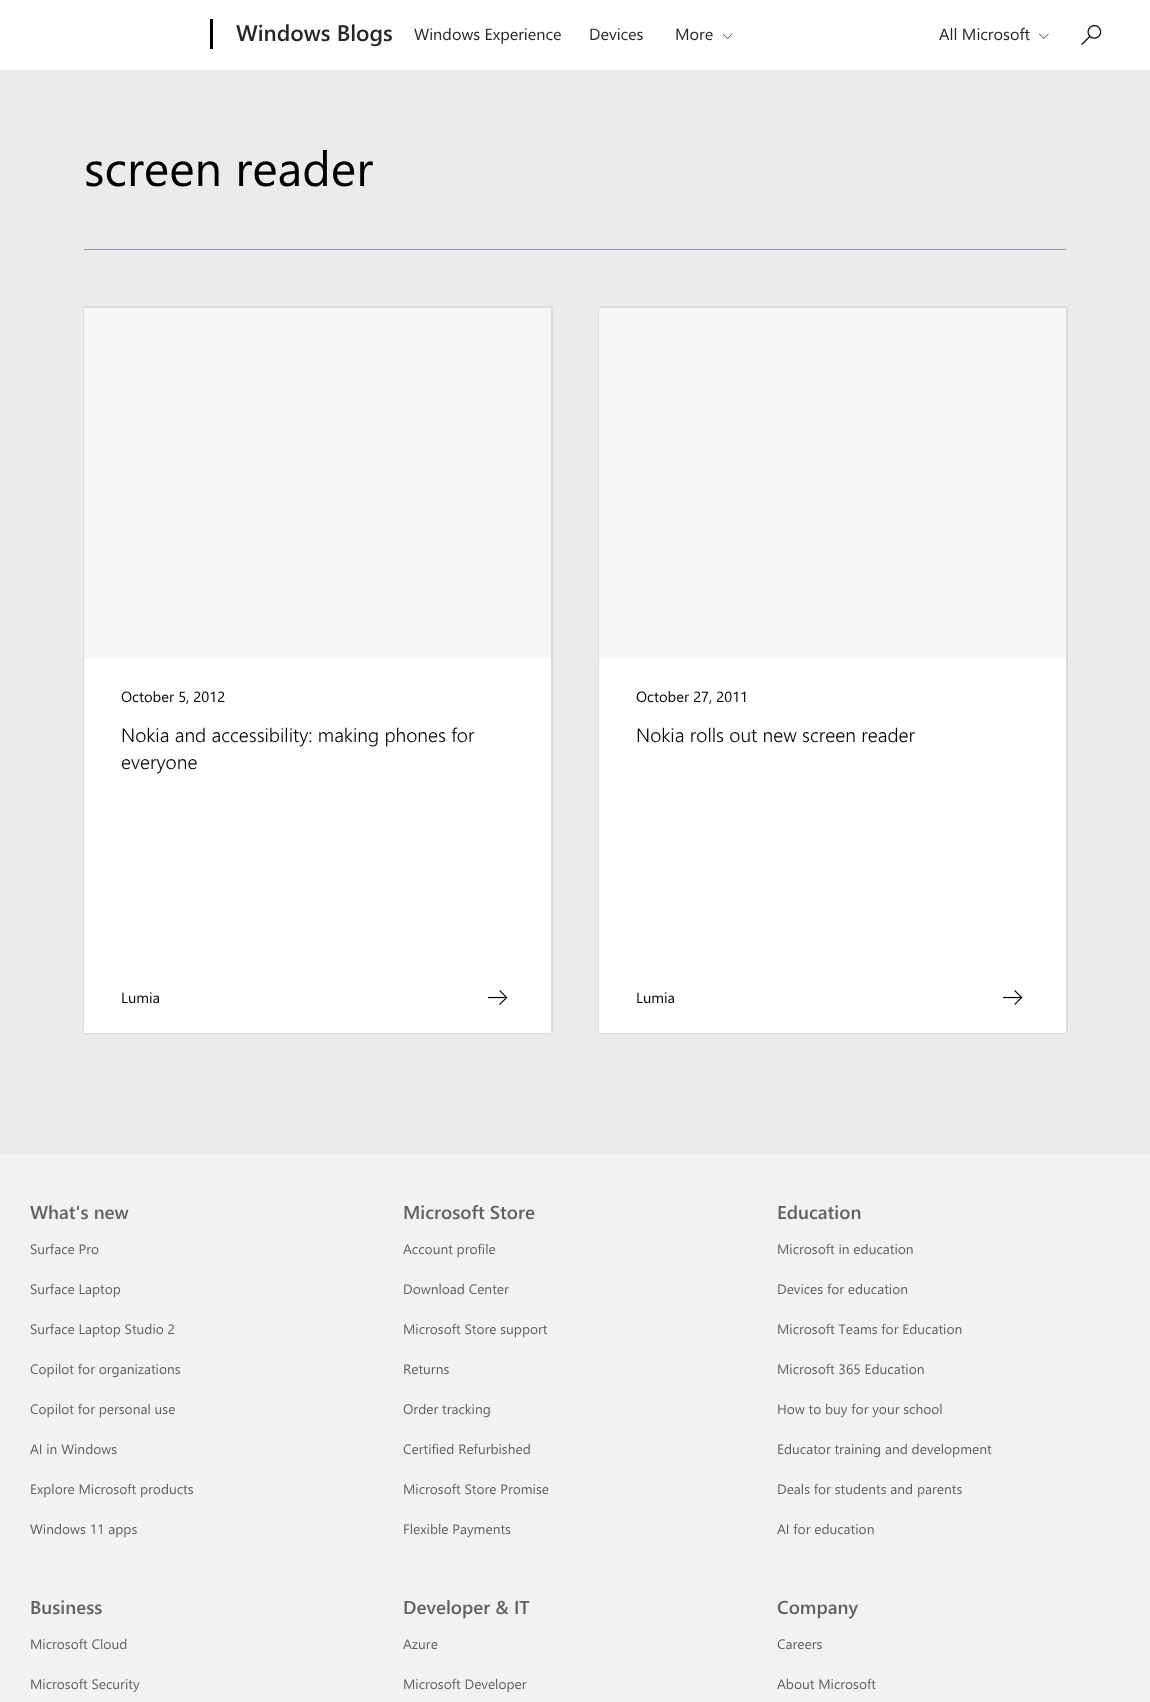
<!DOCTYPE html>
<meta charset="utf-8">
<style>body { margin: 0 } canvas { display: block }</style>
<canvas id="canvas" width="1150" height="1702"></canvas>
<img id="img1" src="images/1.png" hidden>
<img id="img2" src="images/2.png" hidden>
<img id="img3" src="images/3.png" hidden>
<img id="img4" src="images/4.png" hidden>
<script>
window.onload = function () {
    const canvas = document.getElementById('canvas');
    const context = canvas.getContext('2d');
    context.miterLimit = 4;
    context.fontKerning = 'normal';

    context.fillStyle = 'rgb(255, 255, 255)';
    context.fillRect(0, 0, 1150, 1702);
    context.fillStyle = 'rgb(0, 0, 0)';
    context.fillRect(210, 19, 3, 30);
    context.drawImage(document.getElementById('img1'), 722, 33, 11, 6);
    context.drawImage(document.getElementById('img2'), 1039, 33, 10, 6);
    context.drawImage(document.getElementById('img3'), 1081, 25, 21, 20);
    context.fillStyle = 'rgb(235, 235, 235)';
    context.fillRect(0, 70, 1150, 1084);
    context.fillStyle = 'rgb(147, 155, 173)';
    context.fillRect(84, 249, 982, 1);
    context.fillStyle = 'rgb(228, 228, 228)';
    context.beginPath();
    context.moveTo(83, 306);
    context.lineTo(83, 1031);
    context.lineTo(84, 1031);
    context.lineTo(84, 308);
    context.lineTo(550, 308);
    context.lineTo(550, 306);
    context.closePath();
    context.fill();
    context.fillStyle = 'rgba(0, 0, 0, 0.03)';
    context.beginPath();
    context.moveTo(85, 306);
    context.lineTo(85, 308);
    context.lineTo(551, 308);
    context.lineTo(551, 1031);
    context.lineTo(553, 1031);
    context.lineTo(553, 306);
    context.closePath();
    context.fill();
    context.beginPath();
    context.moveTo(83, 309);
    context.lineTo(83, 1034);
    context.lineTo(550, 1034);
    context.lineTo(550, 1032);
    context.lineTo(84, 1032);
    context.lineTo(84, 309);
    context.closePath();
    context.fill();
    context.beginPath();
    context.moveTo(85, 1032);
    context.lineTo(85, 1034);
    context.lineTo(553, 1034);
    context.lineTo(553, 309);
    context.lineTo(551, 309);
    context.lineTo(551, 1032);
    context.closePath();
    context.fill();
    context.fillStyle = 'rgb(255, 255, 255)';
    context.fillRect(84, 658, 467, 375);
    context.fillStyle = 'rgb(246, 246, 246)';
    context.fillRect(84, 308, 467, 350);
    context.drawImage(document.getElementById('img4'), 488, 990, 20, 15);
    context.fillStyle = 'rgb(228, 228, 228)';
    context.beginPath();
    context.moveTo(598, 306);
    context.lineTo(598, 1031);
    context.lineTo(599, 1031);
    context.lineTo(599, 308);
    context.lineTo(1065, 308);
    context.lineTo(1065, 306);
    context.closePath();
    context.fill();
    context.fillStyle = 'rgba(0, 0, 0, 0.03)';
    context.beginPath();
    context.moveTo(600, 306);
    context.lineTo(600, 308);
    context.lineTo(1066, 308);
    context.lineTo(1066, 1031);
    context.lineTo(1068, 1031);
    context.lineTo(1068, 306);
    context.closePath();
    context.fill();
    context.beginPath();
    context.moveTo(598, 309);
    context.lineTo(598, 1034);
    context.lineTo(1065, 1034);
    context.lineTo(1065, 1032);
    context.lineTo(599, 1032);
    context.lineTo(599, 309);
    context.closePath();
    context.fill();
    context.beginPath();
    context.moveTo(600, 1032);
    context.lineTo(600, 1034);
    context.lineTo(1068, 1034);
    context.lineTo(1068, 309);
    context.lineTo(1066, 309);
    context.lineTo(1066, 1032);
    context.closePath();
    context.fill();
    context.fillStyle = 'rgb(255, 255, 255)';
    context.fillRect(599, 658, 467, 375);
    context.fillStyle = 'rgb(246, 246, 246)';
    context.fillRect(599, 308, 467, 350);
    context.drawImage(document.getElementById('img4'), 1003, 990, 20, 15);
    context.fillStyle = 'rgb(242, 242, 242)';
    context.fillRect(0, 1154, 1150, 548);
    context.font = '600 22.5px Segoe UI';
    context.fillStyle = 'rgb(38, 38, 38)';
    context.fillText('Windows Blogs', 236, 41);
    context.font = '16.25px Segoe UI';
    context.fillText('Windows Experience', 414, 40);
    context.fillText('Devices', 589, 40);
    context.fillText('More', 675, 40);
    context.fillText('All Microsoft', 939, 40);
    context.font = '48.5px Segoe UI';
    context.fillStyle = 'rgb(0, 0, 0)';
    context.fillText('screen reader', 84, 186);
    context.font = '14.75px Segoe UI';
    context.fillText('October 5, 2012', 121, 702);
    context.font = '300 19.4px Segoe UI';
    context.fillText('Nokia and accessibility: making phones for', 121, 742);
    context.fillText('everyone', 121, 769);
    context.font = '14.75px Segoe UI';
    context.fillText('Lumia', 121, 1003);
    context.fillText('October 27, 2011', 636, 702);
    context.font = '300 19.4px Segoe UI';
    context.fillText('Nokia rolls out new screen reader', 636, 742);
    context.font = '14.75px Segoe UI';
    context.fillText('Lumia', 636, 1003);
    context.font = '600 18.75px Segoe UI';
    context.fillStyle = 'rgb(97, 97, 97)';
    context.fillText('What\'s new', 30, 1219);
    context.font = '13.75px Segoe UI';
    context.fillText('Surface Pro', 30, 1254);
    context.fillText('Surface Laptop', 30, 1294);
    context.fillText('Surface Laptop Studio 2', 30, 1334);
    context.fillText('Copilot for organizations', 30, 1374);
    context.fillText('Copilot for personal use', 30, 1414);
    context.fillText('AI in Windows', 30, 1454);
    context.fillText('Explore Microsoft products', 30, 1494);
    context.fillText('Windows 11 apps', 30, 1534);
    context.font = '600 18.75px Segoe UI';
    context.fillText('Microsoft Store', 403, 1219);
    context.font = '13.75px Segoe UI';
    context.fillText('Account profile', 403, 1254);
    context.fillText('Download Center', 403, 1294);
    context.fillText('Microsoft Store support', 403, 1334);
    context.fillText('Returns', 403, 1374);
    context.fillText('Order tracking', 403, 1414);
    context.fillText('Certified Refurbished', 403, 1454);
    context.fillText('Microsoft Store Promise', 403, 1494);
    context.fillText('Flexible Payments', 403, 1534);
    context.font = '600 18.75px Segoe UI';
    context.fillText('Education', 777, 1219);
    context.font = '13.75px Segoe UI';
    context.fillText('Microsoft in education', 777, 1254);
    context.fillText('Devices for education', 777, 1294);
    context.fillText('Microsoft Teams for Education', 777, 1334);
    context.fillText('Microsoft 365 Education', 777, 1374);
    context.fillText('How to buy for your school', 777, 1414);
    context.fillText('Educator training and development', 777, 1454);
    context.fillText('Deals for students and parents', 777, 1494);
    context.fillText('AI for education', 777, 1534);
    context.font = '600 18.75px Segoe UI';
    context.fillText('Business', 30, 1614);
    context.font = '13.75px Segoe UI';
    context.fillText('Microsoft Cloud', 30, 1649);
    context.fillText('Microsoft Security', 30, 1689);
    context.font = '600 18.75px Segoe UI';
    context.fillText('Developer & IT', 403, 1614);
    context.font = '13.75px Segoe UI';
    context.fillText('Azure', 403, 1649);
    context.fillText('Microsoft Developer', 403, 1689);
    context.font = '600 18.75px Segoe UI';
    context.fillText('Company', 777, 1614);
    context.font = '13.75px Segoe UI';
    context.fillText('Careers', 777, 1649);
    context.fillText('About Microsoft', 777, 1689);
};
</script>
